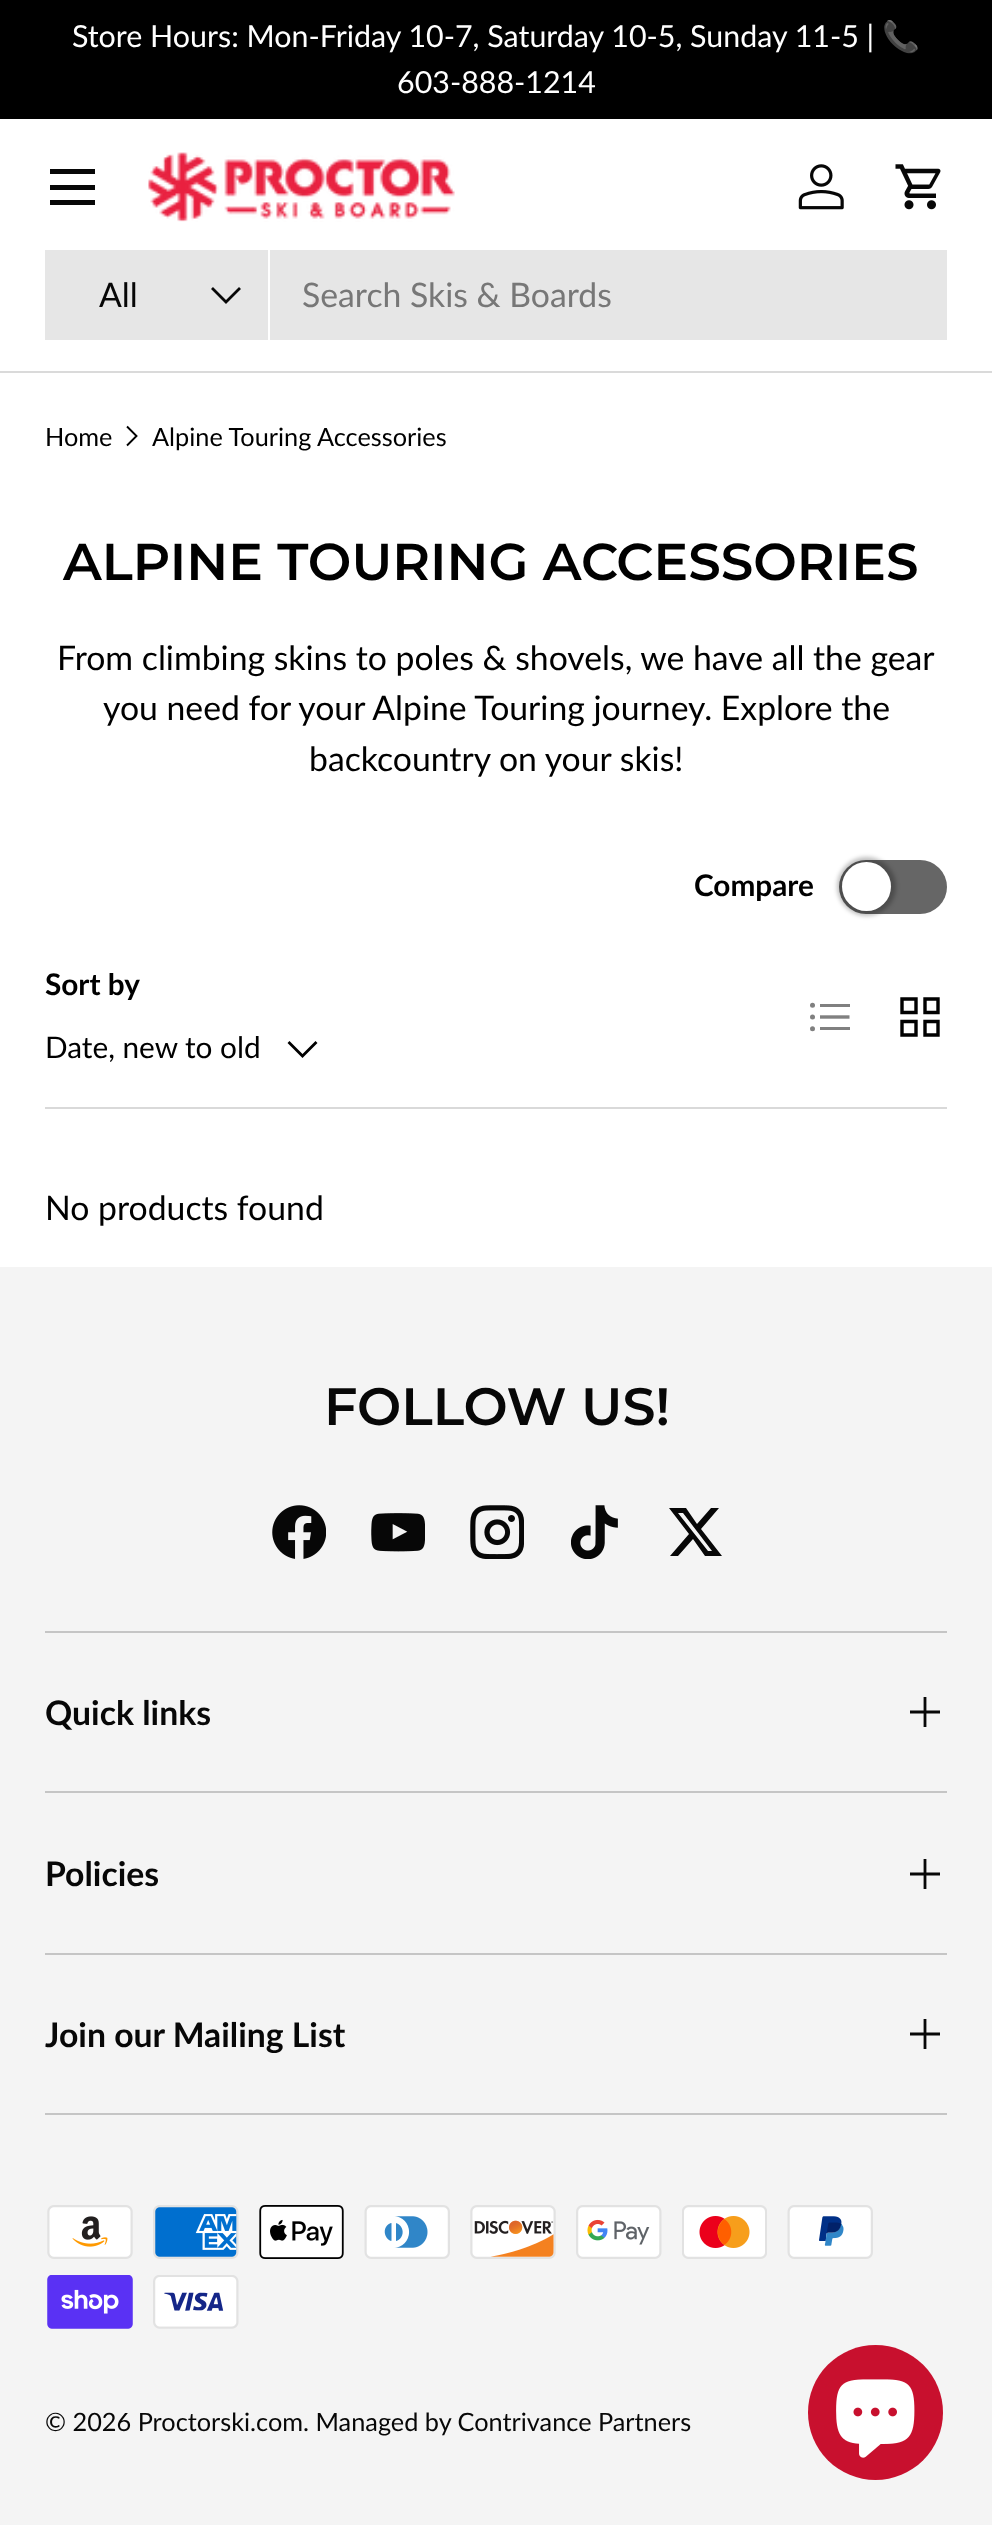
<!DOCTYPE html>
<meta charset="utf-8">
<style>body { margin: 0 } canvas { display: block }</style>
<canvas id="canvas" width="992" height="2525"></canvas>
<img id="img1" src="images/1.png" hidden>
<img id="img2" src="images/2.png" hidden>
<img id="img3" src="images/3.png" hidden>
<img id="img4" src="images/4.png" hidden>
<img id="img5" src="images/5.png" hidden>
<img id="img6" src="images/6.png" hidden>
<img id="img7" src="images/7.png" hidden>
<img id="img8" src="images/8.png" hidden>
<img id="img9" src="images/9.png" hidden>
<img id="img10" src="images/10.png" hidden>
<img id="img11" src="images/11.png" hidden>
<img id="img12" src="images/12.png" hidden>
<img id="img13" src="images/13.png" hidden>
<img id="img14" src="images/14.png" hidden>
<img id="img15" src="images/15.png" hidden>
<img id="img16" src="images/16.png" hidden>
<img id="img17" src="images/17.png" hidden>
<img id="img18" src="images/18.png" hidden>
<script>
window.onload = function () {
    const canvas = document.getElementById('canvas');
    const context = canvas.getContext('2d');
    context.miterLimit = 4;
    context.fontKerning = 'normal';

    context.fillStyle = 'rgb(255, 255, 255)';
    context.fillRect(0, 0, 992, 2525);
    context.fillStyle = 'rgb(0, 0, 0)';
    context.fillRect(0, 0, 992, 119);
    context.fillStyle = 'rgb(218, 218, 218)';
    context.fillRect(0, 371, 992, 2);
    context.fillStyle = 'rgb(7, 7, 7)';
    context.fillRect(50, 169, 45, 5);
    context.fillRect(50, 200, 45, 5);
    context.fillRect(50, 185, 45, 5);
    context.drawImage(document.getElementById('img1'), 148, 152, 307, 70);
    context.drawImage(document.getElementById('img2'), 798, 164, 46, 46);
    context.drawImage(document.getElementById('img3'), 895, 164, 46, 46);
    context.fillStyle = 'rgb(230, 230, 230)';
    context.fillRect(45, 250, 902, 90);
    context.fillStyle = 'rgb(255, 255, 255)';
    context.fillRect(268, 250, 2, 90);
    context.beginPath();
    context.moveTo(240, 288);
    context.lineTo(226, 302);
    context.lineTo(212, 288);
    context.strokeStyle = 'rgb(7, 7, 7)';
    context.lineWidth = 2.8;
    context.stroke();
    context.beginPath();
    context.moveTo(127, 426.5);
    context.lineTo(136.5, 436);
    context.lineTo(127, 445.5);
    context.strokeStyle = 'rgb(0, 0, 0)';
    context.lineWidth = 1.9;
    context.stroke();
    context.fillStyle = 'rgb(217, 217, 217)';
    context.fillRect(45, 1107, 902, 2);
    context.fillStyle = 'rgb(102, 102, 102)';
    context.beginPath();
    context.roundRect(839, 860, 108, 54, 27);
    context.fill();
    context.fillStyle = 'rgba(0, 0, 0, 0.25)';
    context.filter = 'blur(2px)';
    context.beginPath();
    context.roundRect(837, 857, 59, 59, 29.5);
    context.fill();
    context.filter = 'none';
    context.fillStyle = 'rgb(255, 255, 255)';
    context.beginPath();
    context.arc(866.5, 886.5, 24.5, 0, 2 * Math.PI);
    context.fill();
    context.beginPath();
    context.moveTo(316.5, 1042);
    context.lineTo(302.5, 1056);
    context.lineTo(288.5, 1042);
    context.lineWidth = 2.8;
    context.stroke();
    context.fillStyle = 'rgb(128, 128, 128)';
    context.beginPath();
    context.arc(812.5, 1005.3, 2.5, 0, 2 * Math.PI);
    context.fill();
    context.fillRect(820, 1004, 30, 3);
    context.beginPath();
    context.arc(812.5, 1017, 2.5, 0, 2 * Math.PI);
    context.fill();
    context.beginPath();
    context.moveTo(820, 1017);
    context.lineTo(849.5, 1017);
    context.strokeStyle = 'rgb(128, 128, 128)';
    context.lineWidth = 3.4;
    context.stroke();
    context.beginPath();
    context.arc(812.5, 1028.7, 2.5, 0, 2 * Math.PI);
    context.fill();
    context.fillRect(820, 1027, 30, 3);
    context.beginPath();
    context.moveTo(902, 999);
    context.lineTo(916, 999);
    context.lineTo(916, 1012.5);
    context.lineTo(902, 1012.5);
    context.closePath();
    context.moveTo(925, 999);
    context.lineTo(938, 999);
    context.lineTo(938, 1012.5);
    context.lineTo(925, 1012.5);
    context.closePath();
    context.moveTo(902, 1021.5);
    context.lineTo(916, 1021.5);
    context.lineTo(916, 1035);
    context.lineTo(902, 1035);
    context.closePath();
    context.moveTo(925, 1021.5);
    context.lineTo(938, 1021.5);
    context.lineTo(938, 1035);
    context.lineTo(925, 1035);
    context.closePath();
    context.strokeStyle = 'rgb(0, 0, 0)';
    context.stroke();
    context.fillStyle = 'rgb(244, 244, 244)';
    context.fillRect(0, 1267, 992, 1258);
    context.drawImage(document.getElementById('img4'), 272, 1505, 54, 54);
    context.drawImage(document.getElementById('img5'), 371, 1513, 54, 39);
    context.drawImage(document.getElementById('img6'), 470, 1505, 54, 54);
    context.drawImage(document.getElementById('img7'), 571, 1505, 47, 54);
    context.fillStyle = 'rgb(7, 7, 7)';
    context.beginPath();
    context.moveTo(711, 1508);
    context.lineTo(719, 1508);
    context.lineTo(701, 1529);
    context.lineTo(722, 1556);
    context.lineTo(705, 1556);
    context.lineTo(693, 1539);
    context.lineTo(678, 1556);
    context.lineTo(670, 1556);
    context.lineTo(689, 1534);
    context.lineTo(669, 1508);
    context.lineTo(686, 1508);
    context.lineTo(697, 1524);
    context.closePath();
    context.moveTo(708, 1551);
    context.lineTo(712, 1551);
    context.lineTo(683, 1513);
    context.lineTo(678, 1513);
    context.closePath();
    context.fill();
    context.fillStyle = 'rgb(197, 197, 197)';
    context.fillRect(45, 1631, 902, 2);
    context.fillRect(45, 1791, 902, 2);
    context.beginPath();
    context.moveTo(910, 1712);
    context.lineTo(940, 1712);
    context.moveTo(925, 1697);
    context.lineTo(925, 1727);
    context.strokeStyle = 'rgb(7, 7, 7)';
    context.lineWidth = 2.8;
    context.stroke();
    context.fillRect(45, 1953, 902, 2);
    context.beginPath();
    context.moveTo(910, 1874);
    context.lineTo(940, 1874);
    context.moveTo(925, 1859);
    context.lineTo(925, 1889);
    context.stroke();
    context.fillRect(45, 2113, 902, 2);
    context.beginPath();
    context.moveTo(910, 2034);
    context.lineTo(940, 2034);
    context.moveTo(925, 2019);
    context.lineTo(925, 2049);
    context.stroke();
    context.drawImage(document.getElementById('img8'), 47, 2205, 86, 54);
    context.drawImage(document.getElementById('img9'), 153, 2205, 86, 54);
    context.drawImage(document.getElementById('img10'), 259, 2205, 85, 54);
    context.drawImage(document.getElementById('img11'), 364, 2205, 86, 54);
    context.drawImage(document.getElementById('img12'), 470, 2205, 86, 54);
    context.drawImage(document.getElementById('img13'), 576, 2205, 86, 54);
    context.drawImage(document.getElementById('img14'), 682, 2205, 85, 54);
    context.drawImage(document.getElementById('img15'), 787, 2205, 86, 54);
    context.drawImage(document.getElementById('img16'), 47, 2275, 86, 54);
    context.drawImage(document.getElementById('img17'), 153, 2275, 86, 54);
    context.fillStyle = 'rgb(200, 16, 46)';
    context.beginPath();
    context.arc(875.5, 2412.5, 67.5, 0, 2 * Math.PI);
    context.fill();
    context.drawImage(document.getElementById('img18'), 836, 2379, 79, 79);
    context.font = '30.4px Lato';
    context.fillStyle = 'rgb(255, 255, 255)';
    context.fillText('Store Hours: Mon-Friday 10-7, Saturday 10-5, Sunday 11-5 |', 72, 47);
    context.font = '30.4px Noto Color Emoji';
    context.fillText('📞', 882, 47);
    context.font = '30.4px Lato';
    context.fillText('603-888-1214', 397, 93);
    context.font = '33.75px Lato';
    context.fillStyle = 'rgb(7, 7, 7)';
    context.fillText('All', 99, 307);
    context.fillStyle = 'rgb(119, 119, 119)';
    context.fillText('Search Skis & Boards', 302, 307);
    context.font = '25.3px Lato';
    context.fillStyle = 'rgb(0, 0, 0)';
    context.fillText('Home', 45, 446);
    context.fillText('Alpine Touring Accessories', 152, 446);
    context.font = '600 51.75px Montserrat';
    context.fillText('ALPINE TOURING ACCESSORIES', 63, 580);
    context.font = '33.75px Lato';
    context.fillText('From climbing skins to poles & shovels, we have all the gear', 57, 670);
    context.fillText('you need for your Alpine Touring journey. Explore the', 103, 720);
    context.fillText('backcountry on your skis!', 309, 771);
    context.font = 'bold 29.75px Lato';
    context.fillText('Compare', 694, 896);
    context.fillText('Sort by', 45, 995);
    context.font = '29.75px Lato';
    context.fillText('Date, new to old', 45, 1058);
    context.font = '33.75px Lato';
    context.fillText('No products found', 45, 1220);
    context.font = '600 52.5px Montserrat';
    context.fillStyle = 'rgb(7, 7, 7)';
    context.fillText('FOLLOW US!', 324, 1425);
    context.font = 'bold 33.75px Lato';
    context.fillText('Quick links', 45, 1725);
    context.fillText('Policies', 45, 1886);
    context.fillText('Join our Mailing List', 45, 2047);
    context.font = '25.3px Lato';
    context.fillText('© 2026 Proctorski.com. Managed by Contrivance Partners', 45, 2431);
};
</script>
